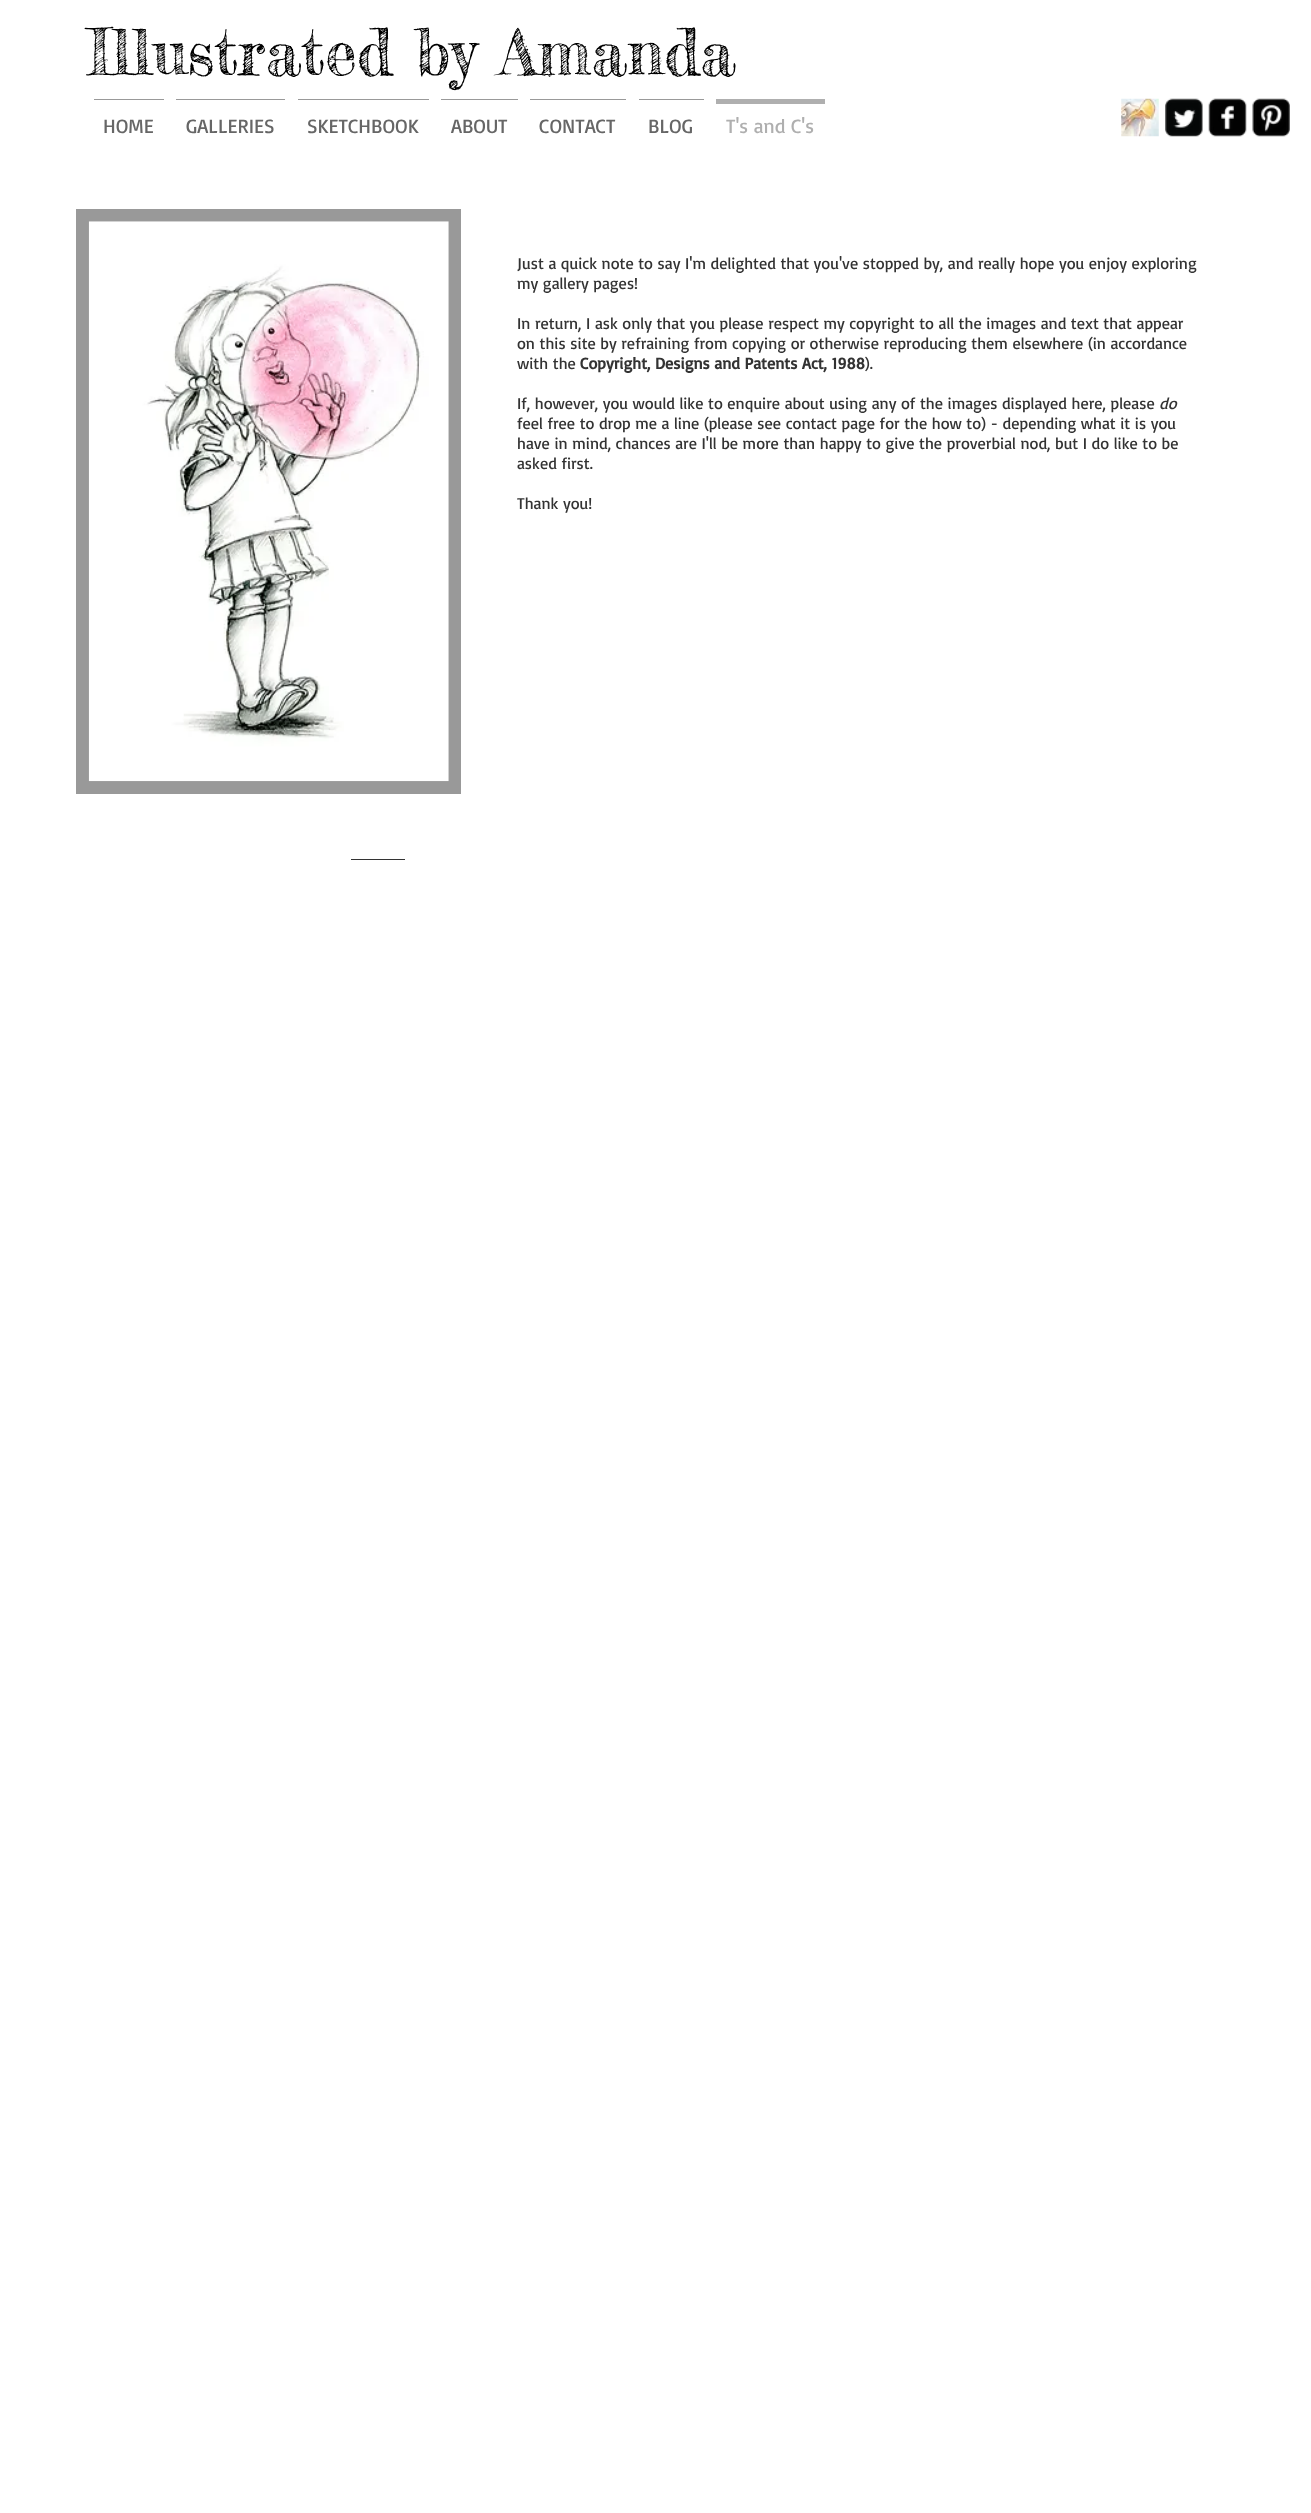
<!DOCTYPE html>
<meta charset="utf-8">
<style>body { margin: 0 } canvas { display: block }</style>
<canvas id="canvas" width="1311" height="2513"></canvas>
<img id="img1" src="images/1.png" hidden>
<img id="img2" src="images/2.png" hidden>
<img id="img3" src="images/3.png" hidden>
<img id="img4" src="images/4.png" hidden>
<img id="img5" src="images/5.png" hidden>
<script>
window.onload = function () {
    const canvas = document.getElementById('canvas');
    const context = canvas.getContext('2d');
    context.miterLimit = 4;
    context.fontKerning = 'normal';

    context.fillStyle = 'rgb(255, 255, 255)';
    context.fillRect(0, 0, 1311, 2513);
    context.fillStyle = 'rgb(153, 153, 153)';
    context.fillRect(94, 99, 70, 1);
    context.fillRect(176, 99, 109, 1);
    context.fillRect(298, 99, 131, 1);
    context.fillRect(441, 99, 77, 1);
    context.fillRect(530, 99, 96, 1);
    context.fillRect(639, 99, 65, 1);
    context.fillStyle = 'rgb(175, 175, 175)';
    context.fillRect(716, 99, 109, 5);
    context.drawImage(document.getElementById('img1'), 1121, 98, 38, 39);
    context.drawImage(document.getElementById('img2'), 1165, 98, 38, 39);
    context.drawImage(document.getElementById('img3'), 1208, 98, 39, 39);
    context.drawImage(document.getElementById('img4'), 1252, 98, 38, 39);
    context.fillStyle = 'rgb(153, 153, 153)';
    context.fillRect(76, 209, 385, 585);
    context.drawImage(document.getElementById('img5'), 88, 221, 361, 561);
    context.fillStyle = 'rgb(51, 51, 51)';
    context.fillRect(351, 859, 54, 1);
    context.font = '63.75px Fredericka the Great';
    context.fillStyle = 'rgb(0, 0, 0)';
    context.fillText('Illustrated by Amanda', 87, 75);
    context.font = '20px Basic';
    context.fillStyle = 'rgb(102, 102, 102)';
    context.fillText('HOME', 103, 133);
    context.fillText('GALLERIES', 186, 133);
    context.fillText('SKETCHBOOK', 307, 133);
    context.fillText('ABOUT', 451, 133);
    context.fillText('CONTACT', 539, 133);
    context.fillText('BLOG', 648, 133);
    context.fillStyle = 'rgb(175, 175, 175)';
    context.fillText('T\'s and C\'s', 726, 133);
    context.font = '16.25px Basic';
    context.fillStyle = 'rgb(51, 51, 51)';
    context.fillText('Just a quick note to say I\'m delighted that you\'ve stopped by, and really hope you enjoy exploring', 517, 269);
    context.fillText('my gallery pages!', 517, 289);
    context.fillText('In return, I ask only that you please respect my copyright to all the images and text that appear', 517, 329);
    context.fillText('on this site by refraining from copying or otherwise reproducing them elsewhere (in accordance', 517, 349);
    context.fillText('with the', 517, 369);
    context.font = 'bold 16.25px Basic';
    context.fillText('Copyright, Designs and Patents Act, 1988', 580, 369);
    context.font = '16.25px Basic';
    context.fillText(').', 865, 369);
    context.fillText('If, however, you would like to enquire about using any of the images displayed here, please', 517, 409);
    context.font = 'italic 16.25px Basic';
    context.fillText('do', 1159, 409);
    context.font = '16.25px Basic';
    context.fillText('feel free to drop me a line (please see contact page for the how to) - depending what it is you', 517, 429);
    context.fillText('have in mind, chances are I\'ll be more than happy to give the proverbial nod, but I do like to be', 517, 449);
    context.fillText('asked first.', 517, 469);
    context.fillText('Thank you!', 517, 509);
};
</script>
